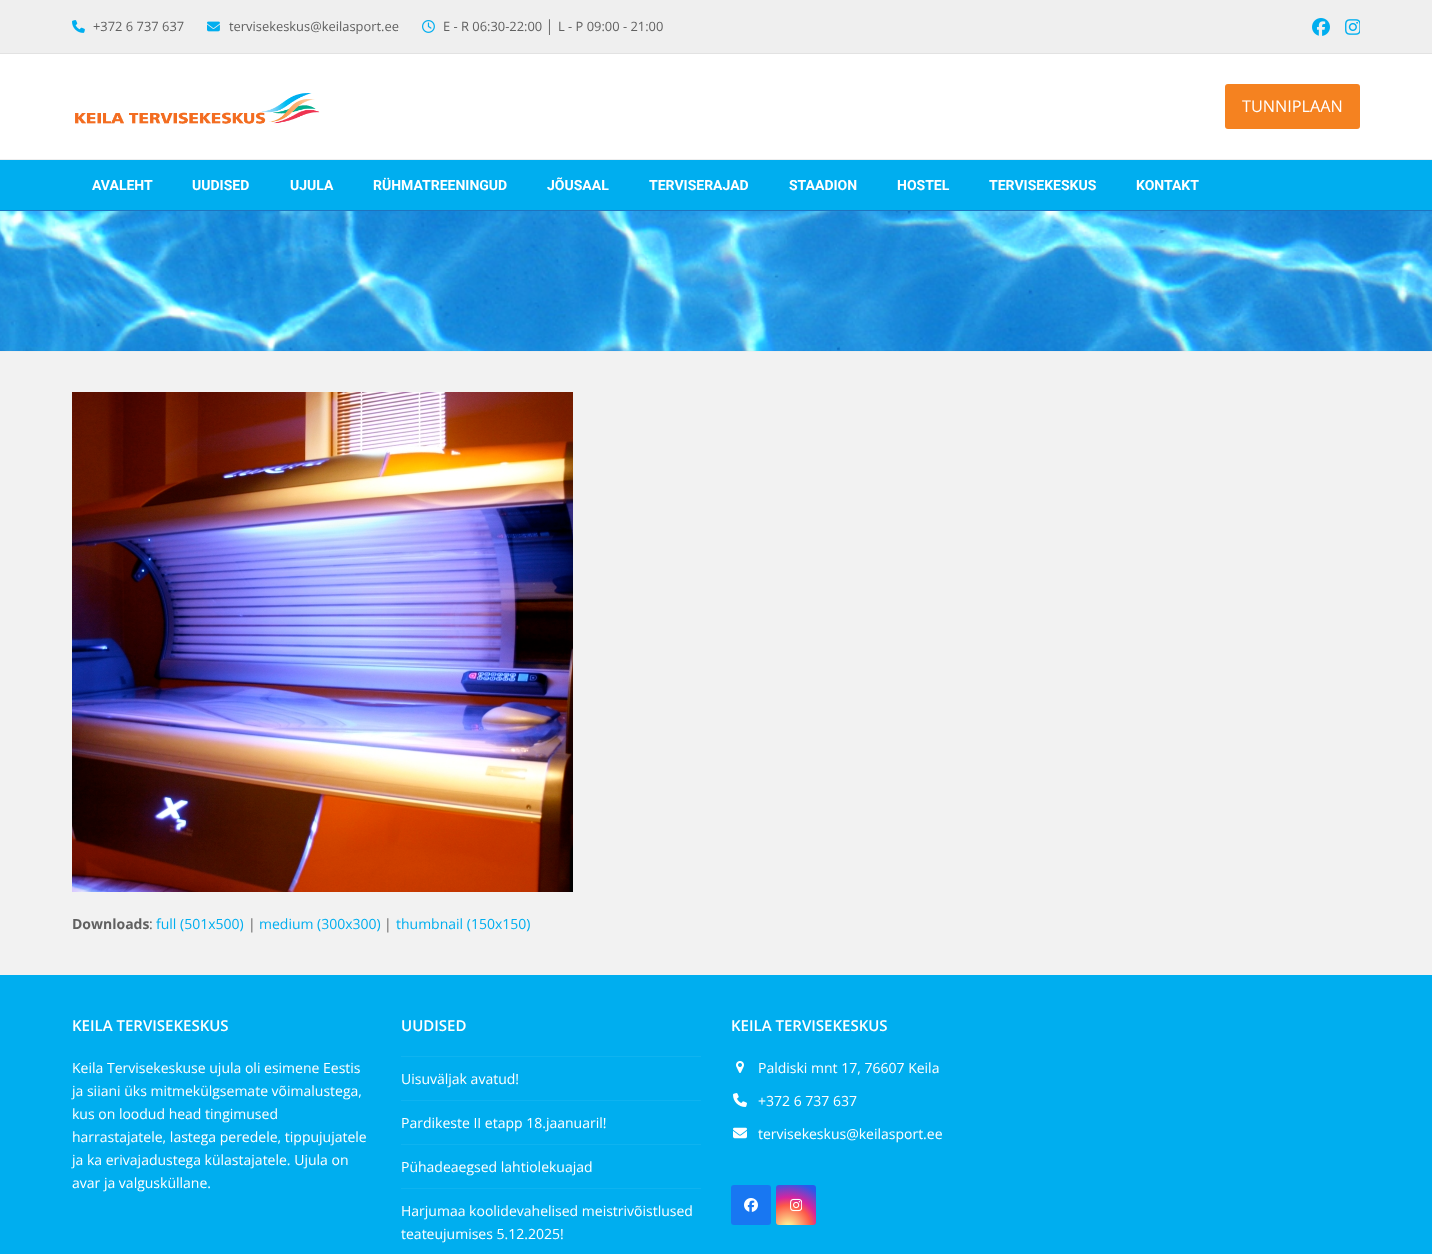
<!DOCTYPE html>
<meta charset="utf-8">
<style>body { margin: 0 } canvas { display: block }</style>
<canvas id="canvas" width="1432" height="1254"></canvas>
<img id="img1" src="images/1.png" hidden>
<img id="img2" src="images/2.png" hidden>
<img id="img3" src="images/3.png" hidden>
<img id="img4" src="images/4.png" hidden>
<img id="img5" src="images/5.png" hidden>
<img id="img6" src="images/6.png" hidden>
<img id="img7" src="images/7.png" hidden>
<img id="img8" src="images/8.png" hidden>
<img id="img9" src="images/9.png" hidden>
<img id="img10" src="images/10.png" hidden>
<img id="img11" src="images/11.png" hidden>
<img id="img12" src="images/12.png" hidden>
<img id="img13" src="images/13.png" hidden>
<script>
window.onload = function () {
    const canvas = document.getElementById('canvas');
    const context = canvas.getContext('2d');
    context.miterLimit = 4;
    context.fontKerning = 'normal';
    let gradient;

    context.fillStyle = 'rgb(242, 242, 242)';
    context.fillRect(0, 0, 1432, 1254);
    context.fillStyle = 'rgb(239, 239, 239)';
    context.fillRect(0, 0, 1432, 53);
    context.fillStyle = 'rgb(226, 226, 226)';
    context.fillRect(0, 53, 1432, 1);
    context.drawImage(document.getElementById('img1'), 72, 20, 13, 13);
    context.drawImage(document.getElementById('img2'), 207, 21, 13, 11);
    context.drawImage(document.getElementById('img3'), 422, 20, 13, 13);
    context.drawImage(document.getElementById('img4'), 1312, 18, 18, 18);
    context.drawImage(document.getElementById('img5'), 1345, 19, 15, 16);
    context.fillStyle = 'rgb(255, 255, 255)';
    context.fillRect(0, 54, 1432, 105);
    context.drawImage(document.getElementById('img6'), 75, 93, 245, 31);
    context.fillStyle = 'rgb(245, 130, 32)';
    context.beginPath();
    context.roundRect(1225, 84, 135, 45, 3);
    context.fill();
    context.fillStyle = 'rgb(0, 174, 239)';
    context.fillRect(0, 160, 1432, 50);
    context.fillStyle = 'rgb(238, 238, 238)';
    context.fillRect(0, 159, 1432, 1);
    context.drawImage(document.getElementById('img7'), 0, 211, 1432, 140);
    context.fillStyle = 'rgb(30, 115, 190)';
    context.fillRect(0, 210, 1432, 1);
    context.fillStyle = 'rgb(238, 238, 238)';
    context.fillRect(0, 351, 1432, 1);
    context.drawImage(document.getElementById('img8'), 72, 392, 501, 500);
    context.fillStyle = 'rgb(0, 174, 239)';
    context.fillRect(0, 975, 1432, 279);
    context.fillStyle = 'rgb(15, 179, 240)';
    context.fillRect(401, 1056, 300, 1);
    context.fillRect(401, 1100, 300, 1);
    context.fillRect(401, 1144, 300, 1);
    context.fillRect(401, 1188, 300, 1);
    context.drawImage(document.getElementById('img9'), 736, 1061, 8, 12);
    context.drawImage(document.getElementById('img10'), 733, 1093, 14, 14);
    context.drawImage(document.getElementById('img11'), 733, 1127, 14, 12);
    context.fillStyle = 'rgb(24, 119, 242)';
    context.beginPath();
    context.roundRect(731, 1185, 40, 40, 3);
    context.fill();
    context.drawImage(document.getElementById('img12'), 744, 1198, 14, 14);
    gradient = context.createRadialGradient(788, 1228, 0, 788, 1228, 51);
    gradient.addColorStop(0, 'rgb(253, 244, 151)');
    gradient.addColorStop(0.05, 'rgb(253, 244, 151)');
    gradient.addColorStop(0.45, 'rgb(253, 89, 73)');
    gradient.addColorStop(0.6, 'rgb(214, 36, 159)');
    gradient.addColorStop(0.9, 'rgb(40, 90, 235)');
    context.fillStyle = gradient;
    context.beginPath();
    context.roundRect(776, 1185, 40, 40, 3);
    context.fill();
    context.drawImage(document.getElementById('img13'), 790, 1198, 12, 14);
    context.font = '12.9px Open Sans';
    context.fillStyle = 'rgb(97, 97, 97)';
    context.fillText('+372 6 737 637', 93, 31);
    context.fillText('tervisekeskus@keilasport.ee', 229, 31);
    context.fillText('E - R 06:30-22:00', 443, 31);
    context.font = '12.9px Liberation Sans';
    context.fillText('│', 546, 31);
    context.font = '12.9px Open Sans';
    context.fillText('L - P 09:00 - 21:00', 558, 31);
    context.font = '16.25px Open Sans';
    context.fillStyle = 'rgb(255, 255, 255)';
    context.fillText('TUNNIPLAAN', 1242, 112);
    context.font = 'bold 14px Roboto';
    context.fillText('AVALEHT', 92, 190);
    context.fillText('UUDISED', 192, 190);
    context.fillText('UJULA', 290, 190);
    context.fillText('RÜHMATREENINGUD', 373, 190);
    context.fillText('JÕUSAAL', 547, 190);
    context.fillText('TERVISERAJAD', 649, 190);
    context.fillText('STAADION', 789, 190);
    context.fillText('HOSTEL', 897, 190);
    context.fillText('TERVISEKESKUS', 989, 190);
    context.fillText('KONTAKT', 1136, 190);
    context.font = 'bold 14px Open Sans';
    context.fillStyle = 'rgb(97, 97, 97)';
    context.fillText('Downloads', 72, 929);
    context.font = '14px Open Sans';
    context.fillText(':', 149, 929);
    context.fillStyle = 'rgb(0, 174, 239)';
    context.fillText('full (501x500)', 156, 929);
    context.fillStyle = 'rgb(97, 97, 97)';
    context.fillText('|', 248, 929);
    context.fillStyle = 'rgb(0, 174, 239)';
    context.fillText('medium (300x300)', 259, 929);
    context.fillStyle = 'rgb(97, 97, 97)';
    context.fillText('|', 384, 929);
    context.fillStyle = 'rgb(0, 174, 239)';
    context.fillText('thumbnail (150x150)', 396, 929);
    context.font = '600 15px Open Sans';
    context.fillStyle = 'rgb(255, 255, 255)';
    context.fillText('KEILA TERVISEKESKUS', 72, 1031);
    context.font = '14px Open Sans';
    context.fillText('Keila Tervisekeskuse ujula oli esimene Eestis', 72, 1073);
    context.fillText('ja siiani üks mitmekülgsemate võimalustega,', 72, 1096);
    context.fillText('kus on loodud head tingimused', 72, 1119);
    context.fillText('harrastajatele, lastega peredele, tippujujatele', 72, 1142);
    context.fillText('ja ka erivajadustega külastajatele. Ujula on', 72, 1165);
    context.fillText('avar ja valgusküllane.', 72, 1188);
    context.font = '600 15px Open Sans';
    context.fillText('UUDISED', 401, 1031);
    context.font = '14px Open Sans';
    context.fillText('Uisuväljak avatud!', 401, 1084);
    context.fillText('Pardikeste II etapp 18.jaanuaril!', 401, 1128);
    context.fillText('Pühadeaegsed lahtiolekuajad', 401, 1172);
    context.fillText('Harjumaa koolidevahelised meistrivõistlused', 401, 1216);
    context.fillText('teateujumises 5.12.2025!', 401, 1239);
    context.font = '600 15px Open Sans';
    context.fillText('KEILA TERVISEKESKUS', 731, 1031);
    context.font = '14px Open Sans';
    context.fillText('Paldiski mnt 17, 76607 Keila', 758, 1073);
    context.fillText('+372 6 737 637', 758, 1106);
    context.fillText('tervisekeskus@keilasport.ee', 758, 1139);
};
</script>
